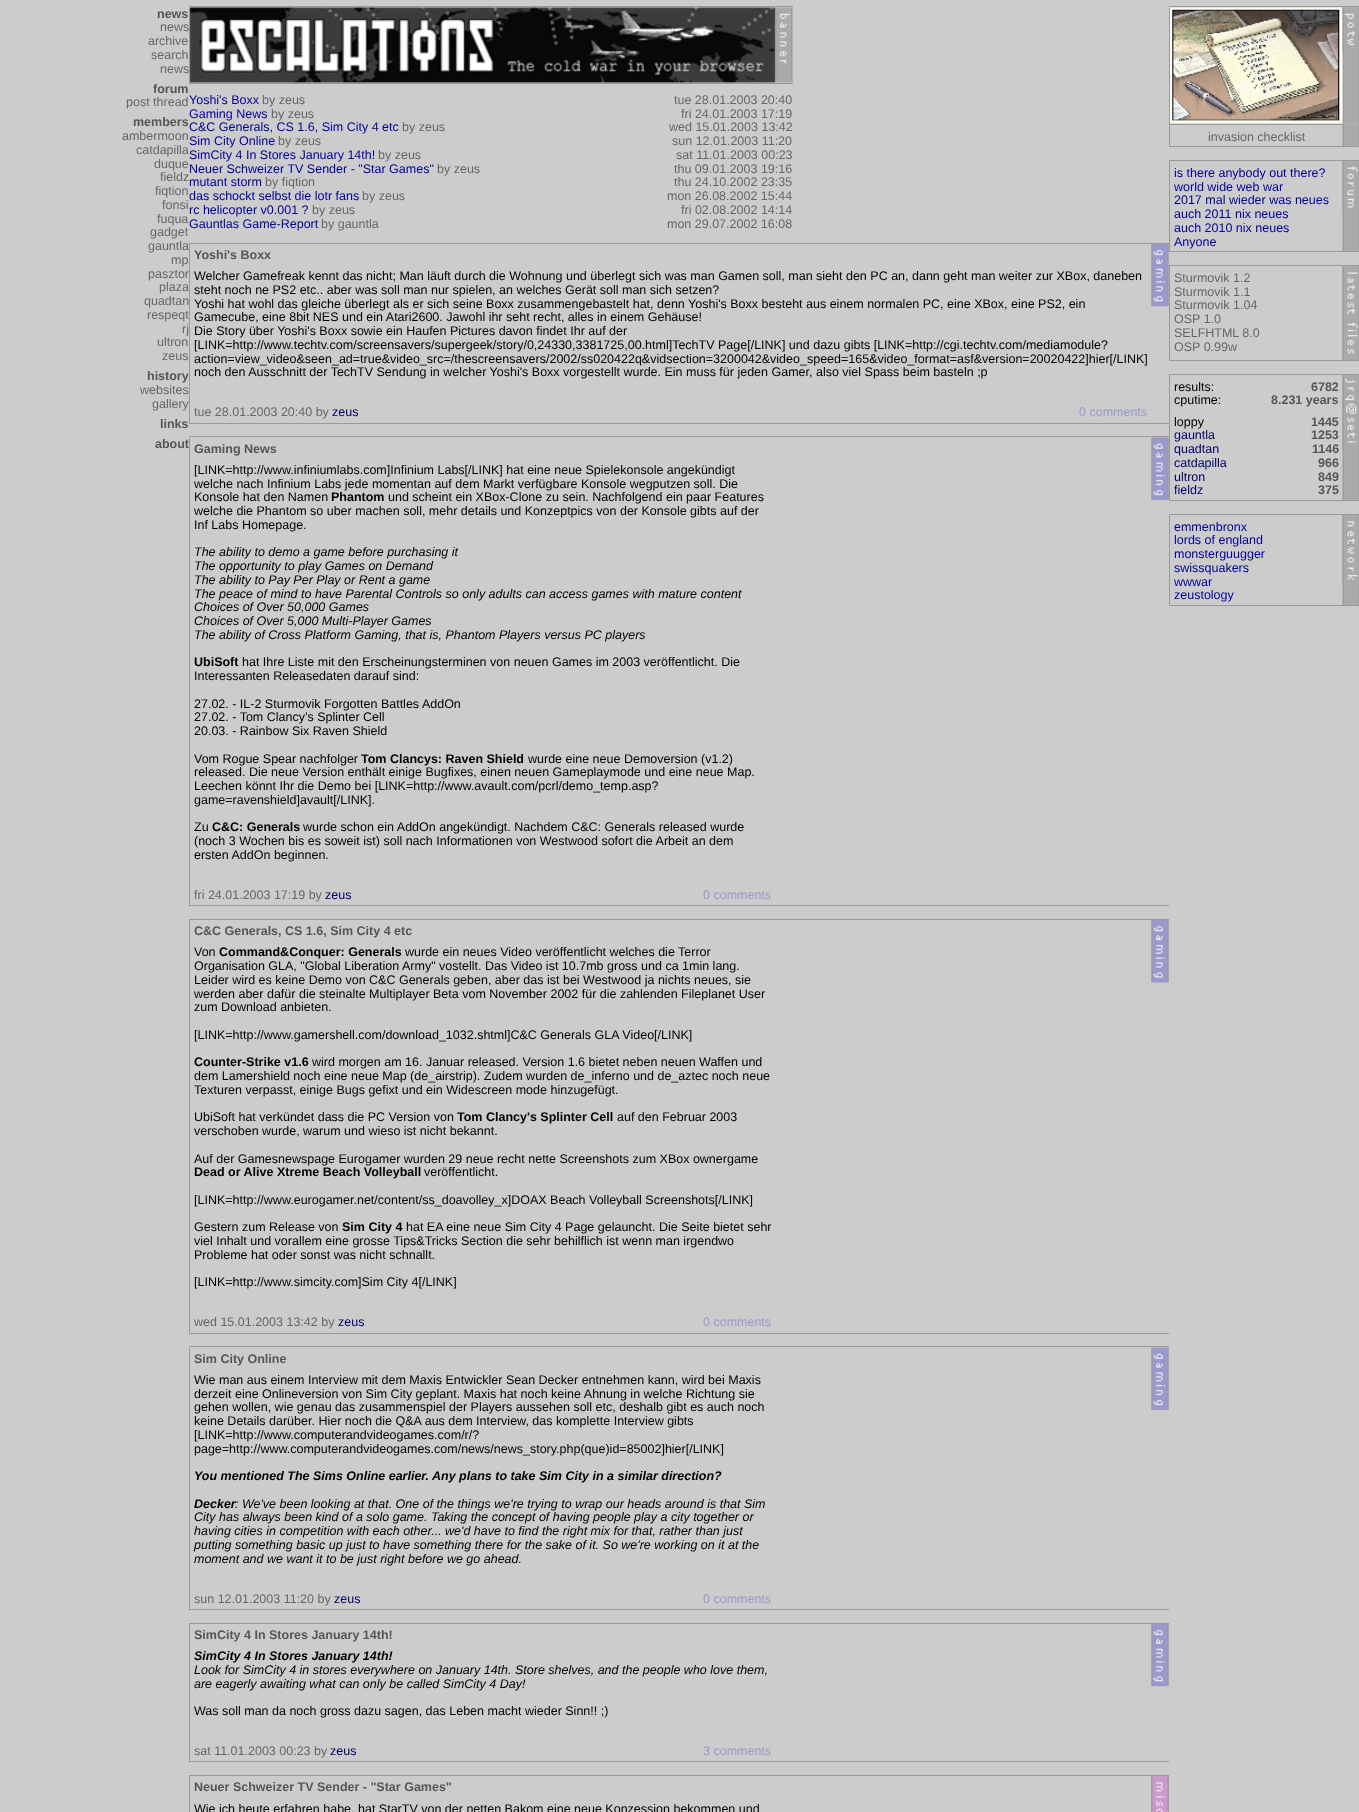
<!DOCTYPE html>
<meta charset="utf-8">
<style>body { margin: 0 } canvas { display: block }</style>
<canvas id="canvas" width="1359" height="1812"></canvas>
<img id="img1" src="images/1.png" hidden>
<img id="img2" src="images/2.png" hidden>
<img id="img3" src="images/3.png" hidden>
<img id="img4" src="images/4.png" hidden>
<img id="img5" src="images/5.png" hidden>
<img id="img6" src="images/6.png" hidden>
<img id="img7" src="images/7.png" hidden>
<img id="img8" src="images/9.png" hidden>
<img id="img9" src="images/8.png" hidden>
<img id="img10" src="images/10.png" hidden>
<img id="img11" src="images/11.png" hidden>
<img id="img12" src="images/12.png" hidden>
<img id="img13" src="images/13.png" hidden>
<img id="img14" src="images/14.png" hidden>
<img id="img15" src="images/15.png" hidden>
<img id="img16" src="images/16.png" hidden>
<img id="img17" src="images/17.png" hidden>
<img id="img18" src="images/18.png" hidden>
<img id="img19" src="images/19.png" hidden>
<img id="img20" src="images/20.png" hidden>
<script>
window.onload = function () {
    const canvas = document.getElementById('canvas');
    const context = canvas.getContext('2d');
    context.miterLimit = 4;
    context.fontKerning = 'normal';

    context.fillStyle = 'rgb(204, 204, 204)';
    context.fillRect(0, 0, 1359, 1812);
    context.fillStyle = 'rgb(153, 153, 153)';
    context.fillRect(189, 6, 604, 1);
    context.fillRect(189, 8, 1, 75);
    context.drawImage(document.getElementById('img1'), 190, 7, 585, 76);
    context.drawImage(document.getElementById('img2'), 775, 7, 18, 76);
    context.fillRect(189, 83, 604, 1);
    context.fillRect(189, 243, 980, 1);
    context.fillRect(189, 244, 1, 179);
    context.drawImage(document.getElementById('img3'), 1151, 243, 18, 64);
    context.fillRect(189, 423, 980, 1);
    context.fillRect(189, 436, 980, 1);
    context.fillRect(189, 438, 1, 467);
    context.drawImage(document.getElementById('img4'), 1151, 437, 18, 63);
    context.fillRect(189, 905, 980, 1);
    context.fillRect(189, 919, 980, 1);
    context.fillRect(189, 920, 1, 413);
    context.drawImage(document.getElementById('img5'), 1151, 920, 18, 63);
    context.fillRect(189, 1333, 980, 1);
    context.fillRect(189, 1346, 980, 1);
    context.fillRect(189, 1348, 1, 261);
    context.drawImage(document.getElementById('img4'), 1151, 1347, 18, 63);
    context.fillRect(189, 1609, 980, 1);
    context.fillRect(189, 1623, 980, 1);
    context.fillRect(189, 1624, 1, 137);
    context.drawImage(document.getElementById('img3'), 1151, 1623, 18, 64);
    context.fillRect(189, 1761, 980, 1);
    context.fillRect(189, 1775, 980, 1);
    context.fillRect(189, 1776, 1, 36);
    context.drawImage(document.getElementById('img6'), 1151, 1776, 18, 36);
    context.drawImage(document.getElementById('img7'), 1151, 1776, 18, 36);
    context.fillRect(1169, 6, 190, 1);
    context.fillRect(1169, 8, 1, 116);
    context.drawImage(document.getElementById('img8'), 1342, 7, 17, 117);
    context.drawImage(document.getElementById('img9'), 1170, 7, 173, 117);
    context.drawImage(document.getElementById('img10'), 1342, 7, 17, 45);
    context.drawImage(document.getElementById('img11'), 1168, 123, 191, 2);
    context.fillRect(1169, 125, 1, 21);
    context.drawImage(document.getElementById('img12'), 1342, 125, 17, 21);
    context.fillRect(1169, 146, 190, 1);
    context.fillRect(1169, 160, 190, 1);
    context.fillRect(1169, 161, 1, 90);
    context.drawImage(document.getElementById('img13'), 1342, 161, 17, 90);
    context.drawImage(document.getElementById('img14'), 1342, 161, 17, 50);
    context.fillRect(1169, 251, 190, 1);
    context.fillRect(1169, 265, 190, 1);
    context.fillRect(1169, 266, 1, 94);
    context.drawImage(document.getElementById('img15'), 1342, 266, 17, 94);
    context.drawImage(document.getElementById('img16'), 1342, 266, 17, 94);
    context.fillRect(1169, 360, 190, 1);
    context.fillRect(1169, 374, 190, 1);
    context.fillRect(1169, 375, 1, 125);
    context.drawImage(document.getElementById('img17'), 1342, 375, 17, 125);
    context.drawImage(document.getElementById('img18'), 1342, 375, 15, 75);
    context.fillRect(1169, 500, 190, 1);
    context.fillRect(1169, 514, 190, 1);
    context.fillRect(1169, 515, 1, 90);
    context.drawImage(document.getElementById('img19'), 1342, 515, 17, 90);
    context.drawImage(document.getElementById('img20'), 1342, 515, 16, 69);
    context.fillRect(1169, 605, 190, 1);
    context.font = 'bold 12.5px Liberation Sans';
    context.fillStyle = 'rgb(85, 85, 85)';
    context.fillText('news', 157, 18);
    context.font = '12.5px Liberation Sans';
    context.fillStyle = 'rgb(102, 102, 102)';
    context.fillText('news', 160, 31);
    context.fillText('archive', 148, 45);
    context.fillText('search', 151, 59);
    context.fillText('news', 160, 73);
    context.font = 'bold 12.5px Liberation Sans';
    context.fillStyle = 'rgb(85, 85, 85)';
    context.fillText('forum', 153, 93);
    context.font = '12.5px Liberation Sans';
    context.fillStyle = 'rgb(102, 102, 102)';
    context.fillText('post thread', 126, 106);
    context.font = 'bold 12.5px Liberation Sans';
    context.fillStyle = 'rgb(85, 85, 85)';
    context.fillText('members', 133, 126);
    context.font = '12.5px Liberation Sans';
    context.fillStyle = 'rgb(102, 102, 102)';
    context.fillText('ambermoon', 122, 140);
    context.fillText('catdapilla', 136, 154);
    context.fillText('duque', 154, 168);
    context.fillText('fieldz', 160, 181);
    context.fillText('fiqtion', 155, 195);
    context.fillText('fonsi', 162, 209);
    context.fillText('fuqua', 157, 223);
    context.fillText('gadget', 150, 236);
    context.fillText('gauntla', 148, 250);
    context.fillText('mp', 171, 264);
    context.fillText('pasztor', 148, 278);
    context.fillText('plaza', 159, 291);
    context.fillText('quadtan', 144, 305);
    context.fillText('respeqt', 147, 319);
    context.fillText('rj', 182, 333);
    context.fillText('ultron', 157, 346);
    context.fillText('zeus', 162, 360);
    context.font = 'bold 12.5px Liberation Sans';
    context.fillStyle = 'rgb(85, 85, 85)';
    context.fillText('history', 147, 380);
    context.font = '12.5px Liberation Sans';
    context.fillStyle = 'rgb(102, 102, 102)';
    context.fillText('websites', 140, 394);
    context.fillText('gallery', 152, 408);
    context.font = 'bold 12.5px Liberation Sans';
    context.fillStyle = 'rgb(85, 85, 85)';
    context.fillText('links', 160, 428);
    context.fillText('about', 155, 448);
    context.font = '12.5px Liberation Sans';
    context.fillStyle = 'rgb(0, 0, 153)';
    context.fillText('Yoshi\'s Boxx', 189, 104);
    context.fillStyle = 'rgb(102, 102, 102)';
    context.fillText('by zeus', 262, 104);
    context.fillText('tue 28.01.2003 20:40', 674, 104);
    context.fillStyle = 'rgb(0, 0, 153)';
    context.fillText('Gaming News', 189, 118);
    context.fillStyle = 'rgb(102, 102, 102)';
    context.fillText('by zeus', 271, 118);
    context.fillText('fri 24.01.2003 17:19', 681, 118);
    context.fillStyle = 'rgb(0, 0, 153)';
    context.fillText('C&C Generals, CS 1.6, Sim City 4 etc', 189, 131);
    context.fillStyle = 'rgb(102, 102, 102)';
    context.fillText('by zeus', 402, 131);
    context.fillText('wed 15.01.2003 13:42', 669, 131);
    context.fillStyle = 'rgb(0, 0, 153)';
    context.fillText('Sim City Online', 189, 145);
    context.fillStyle = 'rgb(102, 102, 102)';
    context.fillText('by zeus', 278, 145);
    context.fillText('sun 12.01.2003 11:20', 672, 145);
    context.fillStyle = 'rgb(0, 0, 153)';
    context.fillText('SimCity 4 In Stores January 14th!', 189, 159);
    context.fillStyle = 'rgb(102, 102, 102)';
    context.fillText('by zeus', 378, 159);
    context.fillText('sat 11.01.2003 00:23', 676, 159);
    context.fillStyle = 'rgb(0, 0, 153)';
    context.fillText('Neuer Schweizer TV Sender - "Star Games"', 189, 173);
    context.fillStyle = 'rgb(102, 102, 102)';
    context.fillText('by zeus', 437, 173);
    context.fillText('thu 09.01.2003 19:16', 674, 173);
    context.fillStyle = 'rgb(0, 0, 153)';
    context.fillText('mutant storm', 189, 186);
    context.fillStyle = 'rgb(102, 102, 102)';
    context.fillText('by fiqtion', 265, 186);
    context.fillText('thu 24.10.2002 23:35', 674, 186);
    context.fillStyle = 'rgb(0, 0, 153)';
    context.fillText('das schockt selbst die lotr fans', 189, 200);
    context.fillStyle = 'rgb(102, 102, 102)';
    context.fillText('by zeus', 362, 200);
    context.fillText('mon 26.08.2002 15:44', 667, 200);
    context.fillStyle = 'rgb(0, 0, 153)';
    context.fillText('rc helicopter v0.001 ?', 189, 214);
    context.fillStyle = 'rgb(102, 102, 102)';
    context.fillText('by zeus', 312, 214);
    context.fillText('fri 02.08.2002 14:14', 681, 214);
    context.fillStyle = 'rgb(0, 0, 153)';
    context.fillText('Gauntlas Game-Report', 189, 228);
    context.fillStyle = 'rgb(102, 102, 102)';
    context.fillText('by gauntla', 321, 228);
    context.fillText('mon 29.07.2002 16:08', 667, 228);
    context.font = 'bold 12.5px Liberation Sans';
    context.fillStyle = 'rgb(85, 85, 85)';
    context.fillText('Yoshi\'s Boxx', 194, 259);
    context.font = '12.5px Liberation Sans';
    context.fillStyle = 'rgb(0, 0, 0)';
    context.fillText('Welcher Gamefreak kennt das nicht; Man läuft durch die Wohnung und überlegt sich was man Gamen soll, man sieht den PC an, dann geht man weiter zur XBox, daneben', 194, 280);
    context.fillText('steht noch ne PS2 etc.. aber was soll man nur spielen, an welches Gerät soll man sich setzen?', 194, 294);
    context.fillText('Yoshi hat wohl das gleiche überlegt als er sich seine Boxx zusammengebastelt hat, denn Yoshi\'s Boxx besteht aus einem normalen PC, eine XBox, eine PS2, ein', 194, 308);
    context.fillText('Gamecube, eine 8bit NES und ein Atari2600. Jawohl ihr seht recht, alles in einem Gehäuse!', 194, 321);
    context.fillText('Die Story über Yoshi\'s Boxx sowie ein Haufen Pictures davon findet Ihr auf der', 194, 335);
    context.fillText('[LINK=http://www.techtv.com/screensavers/supergeek/story/0,24330,3381725,00.html]TechTV Page[/LINK] und dazu gibts [LINK=http://cgi.techtv.com/mediamodule?', 194, 349);
    context.fillText('action=view_video&seen_ad=true&video_src=/thescreensavers/2002/ss020422q&vidsection=3200042&video_speed=165&video_format=asf&version=20020422]hier[/LINK]', 194, 363);
    context.fillText('noch den Ausschnitt der TechTV Sendung in welcher Yoshi\'s Boxx vorgestellt wurde. Ein muss für jeden Gamer, also viel Spass beim basteln ;p', 194, 376);
    context.fillStyle = 'rgb(102, 102, 102)';
    context.fillText('tue 28.01.2003 20:40 by', 194, 416);
    context.fillStyle = 'rgb(0, 0, 102)';
    context.fillText('zeus', 332, 416);
    context.fillStyle = 'rgb(153, 153, 204)';
    context.fillText('0 comments', 1079, 416);
    context.font = 'bold 12.5px Liberation Sans';
    context.fillStyle = 'rgb(85, 85, 85)';
    context.fillText('Gaming News', 194, 453);
    context.font = '12.5px Liberation Sans';
    context.fillStyle = 'rgb(0, 0, 0)';
    context.fillText('[LINK=http://www.infiniumlabs.com]Infinium Labs[/LINK] hat eine neue Spielekonsole angekündigt', 194, 474);
    context.fillText('welche nach Infinium Labs jede momentan auf dem Markt verfügbare Konsole wegputzen soll. Die', 194, 488);
    context.fillText('Konsole hat den Namen', 194, 501);
    context.font = 'bold 12.5px Liberation Sans';
    context.fillText('Phantom', 331, 501);
    context.font = '12.5px Liberation Sans';
    context.fillText('und scheint ein XBox-Clone zu sein. Nachfolgend ein paar Features', 388, 501);
    context.fillText('welche die Phantom so uber machen soll, mehr details und Konzeptpics von der Konsole gibts auf der', 194, 515);
    context.fillText('Inf Labs Homepage.', 194, 529);
    context.font = 'italic 12.5px Liberation Sans';
    context.fillText('The ability to demo a game before purchasing it', 194, 556);
    context.fillText('The opportunity to play Games on Demand', 194, 570);
    context.fillText('The ability to Pay Per Play or Rent a game', 194, 584);
    context.fillText('The peace of mind to have Parental Controls so only adults can access games with mature content', 194, 598);
    context.fillText('Choices of Over 50,000 Games', 194, 611);
    context.fillText('Choices of Over 5,000 Multi-Player Games', 194, 625);
    context.fillText('The ability of Cross Platform Gaming, that is, Phantom Players versus PC players', 194, 639);
    context.font = 'bold 12.5px Liberation Sans';
    context.fillText('UbiSoft', 194, 666);
    context.font = '12.5px Liberation Sans';
    context.fillText('hat Ihre Liste mit den Erscheinungsterminen von neuen Games im 2003 veröffentlicht. Die', 242, 666);
    context.fillText('Interessanten Releasedaten darauf sind:', 194, 680);
    context.fillText('27.02. - IL-2 Sturmovik Forgotten Battles AddOn', 194, 708);
    context.fillText('27.02. - Tom Clancy’s Splinter Cell', 194, 721);
    context.fillText('20.03. - Rainbow Six Raven Shield', 194, 735);
    context.fillText('Vom Rogue Spear nachfolger', 194, 763);
    context.font = 'bold 12.5px Liberation Sans';
    context.fillText('Tom Clancys: Raven Shield', 361, 763);
    context.font = '12.5px Liberation Sans';
    context.fillText('wurde eine neue Demoversion (v1.2)', 528, 763);
    context.fillText('released. Die neue Version enthält einige Bugfixes, einen neuen Gameplaymode und eine neue Map.', 194, 776);
    context.fillText('Leechen könnt Ihr die Demo bei [LINK=http://www.avault.com/pcrl/demo_temp.asp?', 194, 790);
    context.fillText('game=ravenshield]avault[/LINK].', 194, 804);
    context.fillText('Zu', 194, 831);
    context.font = 'bold 12.5px Liberation Sans';
    context.fillText('C&C: Generals', 212, 831);
    context.font = '12.5px Liberation Sans';
    context.fillText('wurde schon ein AddOn angekündigt. Nachdem C&C: Generals released wurde', 303, 831);
    context.fillText('(noch 3 Wochen bis es soweit ist) soll nach Informationen von Westwood sofort die Arbeit an dem', 194, 845);
    context.fillText('ersten AddOn beginnen.', 194, 859);
    context.fillStyle = 'rgb(102, 102, 102)';
    context.fillText('fri 24.01.2003 17:19 by', 194, 899);
    context.fillStyle = 'rgb(0, 0, 102)';
    context.fillText('zeus', 325, 899);
    context.fillStyle = 'rgb(153, 153, 204)';
    context.fillText('0 comments', 703, 899);
    context.font = 'bold 12.5px Liberation Sans';
    context.fillStyle = 'rgb(85, 85, 85)';
    context.fillText('C&C Generals, CS 1.6, Sim City 4 etc', 194, 935);
    context.font = '12.5px Liberation Sans';
    context.fillStyle = 'rgb(0, 0, 0)';
    context.fillText('Von', 194, 956);
    context.font = 'bold 12.5px Liberation Sans';
    context.fillText('Command&Conquer: Generals', 219, 956);
    context.font = '12.5px Liberation Sans';
    context.fillText('wurde ein neues Video veröffentlicht welches die Terror', 405, 956);
    context.fillText('Organisation GLA, "Global Liberation Army" vostellt. Das Video ist 10.7mb gross und ca 1min lang.', 194, 970);
    context.fillText('Leider wird es keine Demo von C&C Generals geben, aber das ist bei Westwood ja nichts neues, sie', 194, 984);
    context.fillText('werden aber dafür die steinalte Multiplayer Beta vom November 2002 für die zahlenden Fileplanet User', 194, 998);
    context.fillText('zum Download anbieten.', 194, 1011);
    context.fillText('[LINK=http://www.gamershell.com/download_1032.shtml]C&C Generals GLA Video[/LINK]', 194, 1039);
    context.font = 'bold 12.5px Liberation Sans';
    context.fillText('Counter-Strike v1.6', 194, 1066);
    context.font = '12.5px Liberation Sans';
    context.fillText('wird morgen am 16. Januar released. Version 1.6 bietet neben neuen Waffen und', 312, 1066);
    context.fillText('dem Lamershield noch eine neue Map (de_airstrip). Zudem wurden de_inferno und de_aztec noch neue', 194, 1080);
    context.fillText('Texturen verpasst, einige Bugs gefixt und ein Widescreen mode hinzugefügt.', 194, 1094);
    context.fillText('UbiSoft hat verkündet dass die PC Version von', 194, 1121);
    context.font = 'bold 12.5px Liberation Sans';
    context.fillText('Tom Clancy\'s Splinter Cell', 457, 1121);
    context.font = '12.5px Liberation Sans';
    context.fillText('auf den Februar 2003', 617, 1121);
    context.fillText('verschoben wurde, warum und wieso ist nicht bekannt.', 194, 1135);
    context.fillText('Auf der Gamesnewspage Eurogamer wurden 29 neue recht nette Screenshots zum XBox ownergame', 194, 1163);
    context.font = 'bold 12.5px Liberation Sans';
    context.fillText('Dead or Alive Xtreme Beach Volleyball', 194, 1176);
    context.font = '12.5px Liberation Sans';
    context.fillText('veröffentlicht.', 424, 1176);
    context.fillText('[LINK=http://www.eurogamer.net/content/ss_doavolley_x]DOAX Beach Volleyball Screenshots[/LINK]', 194, 1204);
    context.fillText('Gestern zum Release von', 194, 1231);
    context.font = 'bold 12.5px Liberation Sans';
    context.fillText('Sim City 4', 342, 1231);
    context.font = '12.5px Liberation Sans';
    context.fillText('hat EA eine neue Sim City 4 Page gelauncht. Die Seite bietet sehr', 406, 1231);
    context.fillText('viel Inhalt und vorallem eine grosse Tips&Tricks Section die sehr behilflich ist wenn man irgendwo', 194, 1245);
    context.fillText('Probleme hat oder sonst was nicht schnallt.', 194, 1259);
    context.fillText('[LINK=http://www.simcity.com]Sim City 4[/LINK]', 194, 1286);
    context.fillStyle = 'rgb(102, 102, 102)';
    context.fillText('wed 15.01.2003 13:42 by', 194, 1326);
    context.fillStyle = 'rgb(0, 0, 102)';
    context.fillText('zeus', 338, 1326);
    context.fillStyle = 'rgb(153, 153, 204)';
    context.fillText('0 comments', 703, 1326);
    context.font = 'bold 12.5px Liberation Sans';
    context.fillStyle = 'rgb(85, 85, 85)';
    context.fillText('Sim City Online', 194, 1363);
    context.font = '12.5px Liberation Sans';
    context.fillStyle = 'rgb(0, 0, 0)';
    context.fillText('Wie man aus einem Interview mit dem Maxis Entwickler Sean Decker entnehmen kann, wird bei Maxis', 194, 1384);
    context.fillText('derzeit eine Onlineversion von Sim City geplant. Maxis hat noch keine Ahnung in welche Richtung sie', 194, 1398);
    context.fillText('gehen wollen, wie genau das zusammenspiel der Players aussehen soll etc, deshalb gibt es auch noch', 194, 1411);
    context.fillText('keine Details darüber. Hier noch die Q&A aus dem Interview, das komplette Interview gibts', 194, 1425);
    context.fillText('[LINK=http://www.computerandvideogames.com/r/?', 194, 1439);
    context.fillText('page=http://www.computerandvideogames.com/news/news_story.php(que)id=85002]hier[/LINK]', 194, 1453);
    context.font = 'italic bold 12.5px Liberation Sans';
    context.fillText('You mentioned The Sims Online earlier. Any plans to take Sim City in a similar direction?', 194, 1480);
    context.fillText('Decker', 194, 1508);
    context.font = 'italic 12.5px Liberation Sans';
    context.fillText(': We\'ve been looking at that. One of the things we\'re trying to wrap our heads around is that Sim', 235, 1508);
    context.fillText('City has always been kind of a solo game. Taking the concept of having people play a city together or', 194, 1521);
    context.fillText('having cities in competition with each other... we\'d have to find the right mix for that, rather than just', 194, 1535);
    context.fillText('putting something basic up just to have something there for the sake of it. So we\'re working on it at the', 194, 1549);
    context.fillText('moment and we want it to be just right before we go ahead.', 194, 1563);
    context.font = '12.5px Liberation Sans';
    context.fillStyle = 'rgb(102, 102, 102)';
    context.fillText('sun 12.01.2003 11:20 by', 194, 1603);
    context.fillStyle = 'rgb(0, 0, 102)';
    context.fillText('zeus', 334, 1603);
    context.fillStyle = 'rgb(153, 153, 204)';
    context.fillText('0 comments', 703, 1603);
    context.font = 'bold 12.5px Liberation Sans';
    context.fillStyle = 'rgb(85, 85, 85)';
    context.fillText('SimCity 4 In Stores January 14th!', 194, 1639);
    context.font = 'italic bold 12.5px Liberation Sans';
    context.fillStyle = 'rgb(0, 0, 0)';
    context.fillText('SimCity 4 In Stores January 14th!', 194, 1660);
    context.font = 'italic 12.5px Liberation Sans';
    context.fillText('Look for SimCity 4 in stores everywhere on January 14th. Store shelves, and the people who love them,', 194, 1674);
    context.fillText('are eagerly awaiting what can only be called SimCity 4 Day!', 194, 1688);
    context.font = '12.5px Liberation Sans';
    context.fillText('Was soll man da noch gross dazu sagen, das Leben macht wieder Sinn!! ;)', 194, 1715);
    context.fillStyle = 'rgb(102, 102, 102)';
    context.fillText('sat 11.01.2003 00:23 by', 194, 1755);
    context.fillStyle = 'rgb(0, 0, 102)';
    context.fillText('zeus', 330, 1755);
    context.fillStyle = 'rgb(153, 153, 204)';
    context.fillText('3 comments', 703, 1755);
    context.font = 'bold 12.5px Liberation Sans';
    context.fillStyle = 'rgb(85, 85, 85)';
    context.fillText('Neuer Schweizer TV Sender - "Star Games"', 194, 1791);
    context.font = '12.5px Liberation Sans';
    context.fillStyle = 'rgb(0, 0, 0)';
    context.fillText('Wie ich heute erfahren habe, hat StarTV von der netten Bakom eine neue Konzession bekommen und', 194, 1813);
    context.fillStyle = 'rgb(102, 102, 102)';
    context.fillText('invasion checklist', 1208, 141);
    context.fillStyle = 'rgb(0, 0, 153)';
    context.fillText('is there anybody out there?', 1174, 177);
    context.fillText('world wide web war', 1174, 191);
    context.fillText('2017 mal wieder was neues', 1174, 204);
    context.fillText('auch 2011 nix neues', 1174, 218);
    context.fillText('auch 2010 nix neues', 1174, 232);
    context.fillText('Anyone', 1174, 246);
    context.fillStyle = 'rgb(102, 102, 102)';
    context.fillText('Sturmovik 1.2', 1174, 282);
    context.fillText('Sturmovik 1.1', 1174, 296);
    context.fillText('Sturmovik 1.04', 1174, 309);
    context.fillText('OSP 1.0', 1174, 323);
    context.fillText('SELFHTML 8.0', 1174, 337);
    context.fillText('OSP 0.99w', 1174, 351);
    context.fillStyle = 'rgb(0, 0, 0)';
    context.fillText('results:', 1174, 391);
    context.fillText('cputime:', 1174, 404);
    context.font = 'bold 12.5px Liberation Sans';
    context.fillStyle = 'rgb(85, 85, 85)';
    context.fillText('6782', 1311, 391);
    context.fillText('8.231 years', 1271, 404);
    context.font = '12.5px Liberation Sans';
    context.fillStyle = 'rgb(0, 0, 0)';
    context.fillText('loppy', 1174, 426);
    context.fillStyle = 'rgb(0, 0, 102)';
    context.fillText('gauntla', 1174, 439);
    context.fillText('quadtan', 1174, 453);
    context.fillText('catdapilla', 1174, 467);
    context.fillText('ultron', 1174, 481);
    context.fillText('fieldz', 1174, 494);
    context.font = 'bold 12.5px Liberation Sans';
    context.fillStyle = 'rgb(85, 85, 85)';
    context.fillText('1445', 1311, 426);
    context.fillText('1253', 1311, 439);
    context.fillText('1146', 1312, 453);
    context.fillText('966', 1318, 467);
    context.fillText('849', 1318, 481);
    context.fillText('375', 1318, 494);
    context.font = '12.5px Liberation Sans';
    context.fillStyle = 'rgb(0, 0, 153)';
    context.fillText('emmenbronx', 1174, 531);
    context.fillText('lords of england', 1174, 544);
    context.fillText('monsterguugger', 1174, 558);
    context.fillText('swissquakers', 1174, 572);
    context.fillText('wwwar', 1174, 586);
    context.fillText('zeustology', 1174, 599);
};
</script>
